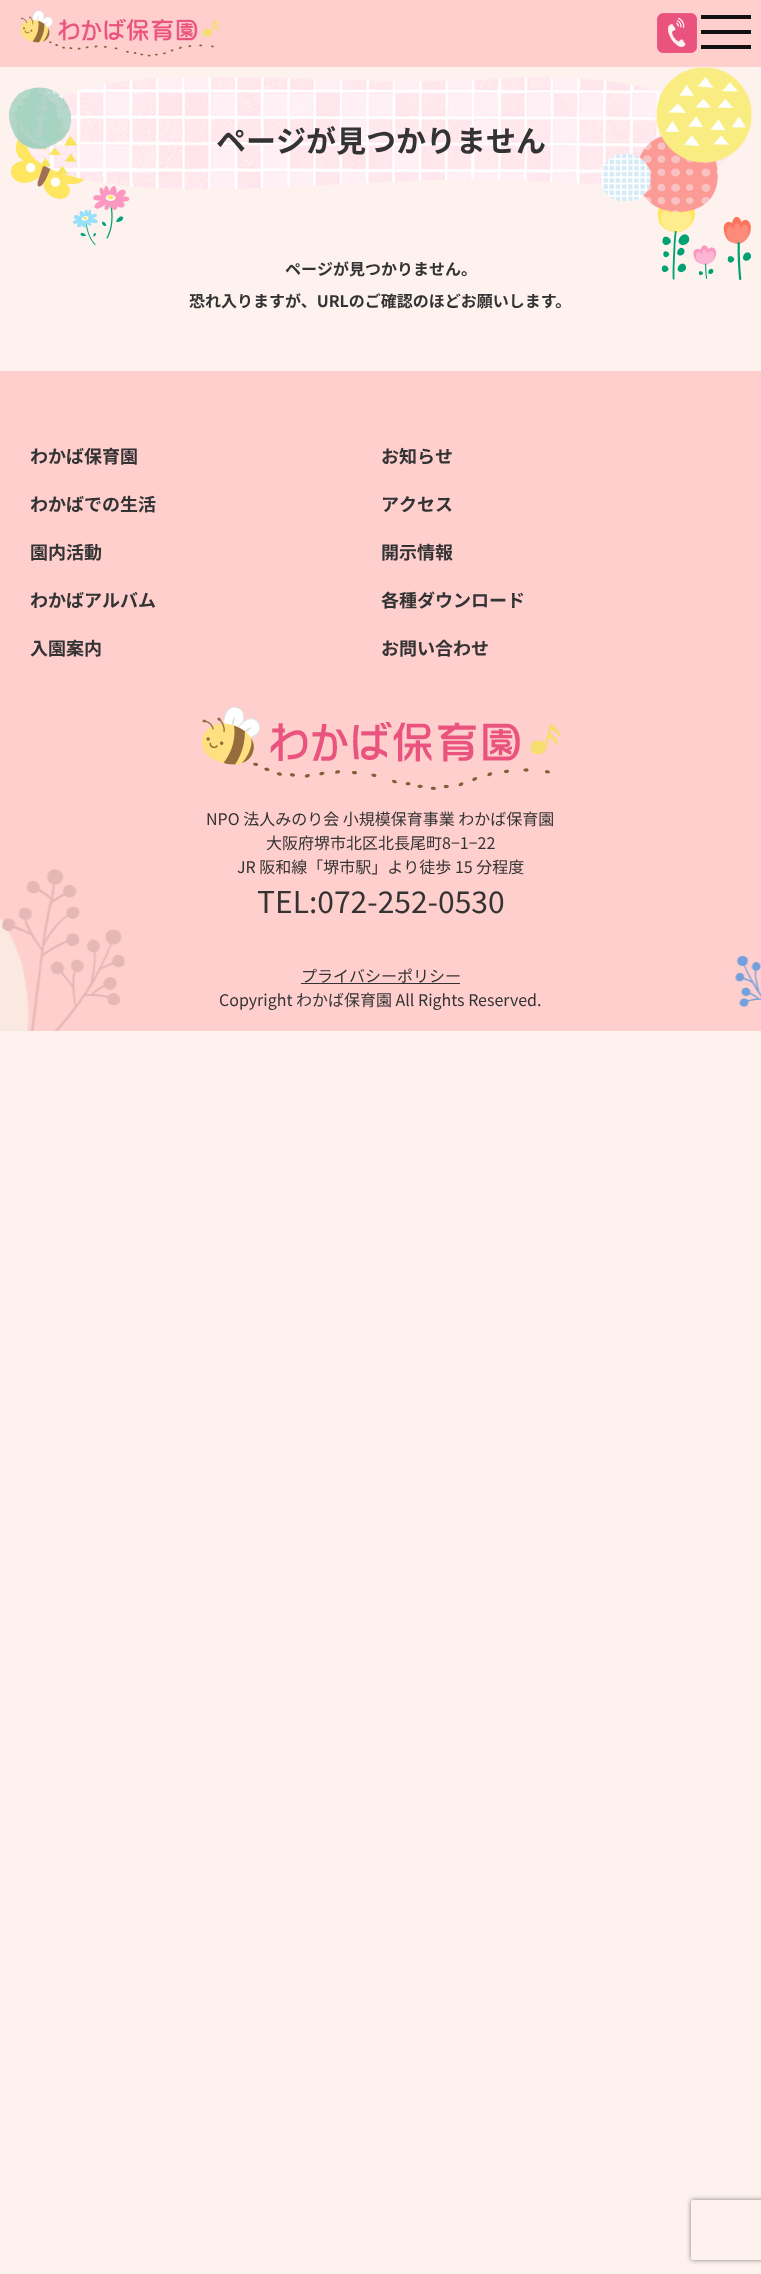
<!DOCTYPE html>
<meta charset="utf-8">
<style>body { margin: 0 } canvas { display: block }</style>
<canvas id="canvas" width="761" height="2274"></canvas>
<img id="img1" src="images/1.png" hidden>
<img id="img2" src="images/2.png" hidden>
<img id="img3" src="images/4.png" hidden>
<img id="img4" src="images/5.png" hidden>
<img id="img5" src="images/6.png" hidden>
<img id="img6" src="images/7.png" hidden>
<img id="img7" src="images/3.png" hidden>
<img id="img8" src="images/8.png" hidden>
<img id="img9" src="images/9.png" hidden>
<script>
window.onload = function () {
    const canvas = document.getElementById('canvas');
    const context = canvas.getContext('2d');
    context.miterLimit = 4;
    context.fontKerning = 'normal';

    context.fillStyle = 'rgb(254, 242, 239)';
    context.fillRect(0, 0, 761, 2274);
    context.fillStyle = 'rgb(255, 207, 206)';
    context.fillRect(0, 0, 761, 67);
    context.drawImage(document.getElementById('img1'), 20, 10, 200, 47);
    context.drawImage(document.getElementById('img2'), 657, 13, 40, 40);
    context.fillStyle = 'rgb(17, 17, 17)';
    context.fillRect(701, 15, 50, 4);
    context.fillRect(701, 30, 50, 4);
    context.fillRect(701, 45, 50, 4);
    context.drawImage(document.getElementById('img3'), 72, 186, 58, 59);
    context.drawImage(document.getElementById('img4'), 10, 139, 75, 60);
    context.drawImage(document.getElementById('img5'), 657, 207, 94, 73);
    context.drawImage(document.getElementById('img6'), 602, 183, 1, 1);
    context.drawImage(document.getElementById('img7'), 9, 67, 743, 145);
    context.fillStyle = 'rgb(255, 207, 206)';
    context.fillRect(0, 371, 761, 498);
    context.drawImage(document.getElementById('img8'), 0, 869, 761, 162);
    context.drawImage(document.getElementById('img9'), 201, 706, 359, 84);
    context.fillStyle = 'rgb(51, 51, 51)';
    context.fillRect(301, 983, 159, 1);
    context.save();
    context.beginPath();
    context.moveTo(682, 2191);
    context.lineTo(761, 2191);
    context.lineTo(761, 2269);
    context.lineTo(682, 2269);
    context.closePath();
    context.moveTo(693, 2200);
    context.lineTo(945, 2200);
    context.bezierCurveTo(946, 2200, 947, 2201, 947, 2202);
    context.lineTo(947, 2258);
    context.bezierCurveTo(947, 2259, 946, 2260, 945, 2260);
    context.lineTo(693, 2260);
    context.bezierCurveTo(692, 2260, 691, 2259, 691, 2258);
    context.lineTo(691, 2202);
    context.bezierCurveTo(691, 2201, 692, 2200, 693, 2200);
    context.closePath();
    context.clip('evenodd');
    context.fillStyle = 'rgb(128, 128, 128)';
    context.filter = 'blur(2.5px)';
    context.beginPath();
    context.roundRect(691, 2200, 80, 60, 2);
    context.fill();
    context.filter = 'none';
    context.restore();
    context.font = 'bold 30px Noto Sans JP';
    context.fillText('ページが見つかりません', 216, 152);
    context.font = 'bold 16px Noto Sans JP';
    context.fillText('ページが見つかりません。', 285, 275);
    context.fillText('恐れ入りますが、URLのご確認のほどお願いします。', 189, 307);
    context.font = 'bold 18px Noto Sans JP';
    context.fillText('わかば保育園', 30, 463);
    context.fillText('わかばでの生活', 30, 511);
    context.fillText('園内活動', 30, 559);
    context.fillText('わかばアルバム', 30, 607);
    context.fillText('入園案内', 30, 655);
    context.fillText('お知らせ', 381, 463);
    context.fillText('アクセス', 381, 511);
    context.fillText('開示情報', 381, 559);
    context.fillText('各種ダウンロード', 381, 607);
    context.fillText('お問い合わせ', 381, 655);
    context.font = '16px Noto Sans JP';
    context.fillText('NPO 法人みのり会 小規模保育事業 わかば保育園', 206, 825);
    context.fillText('大阪府堺市北区北⻑尾町8−1−22', 266, 849);
    context.fillText('JR 阪和線「堺市駅」より徒歩 15 分程度', 237, 873);
    context.font = '30px Noto Sans JP';
    context.fillText('TEL:072-252-0530', 257, 913);
    context.font = '16px Noto Sans JP';
    context.fillText('プライバシーポリシー', 301, 982);
    context.fillText('Copyright わかば保育園 All Rights Reserved.', 219, 1006);
};
</script>
